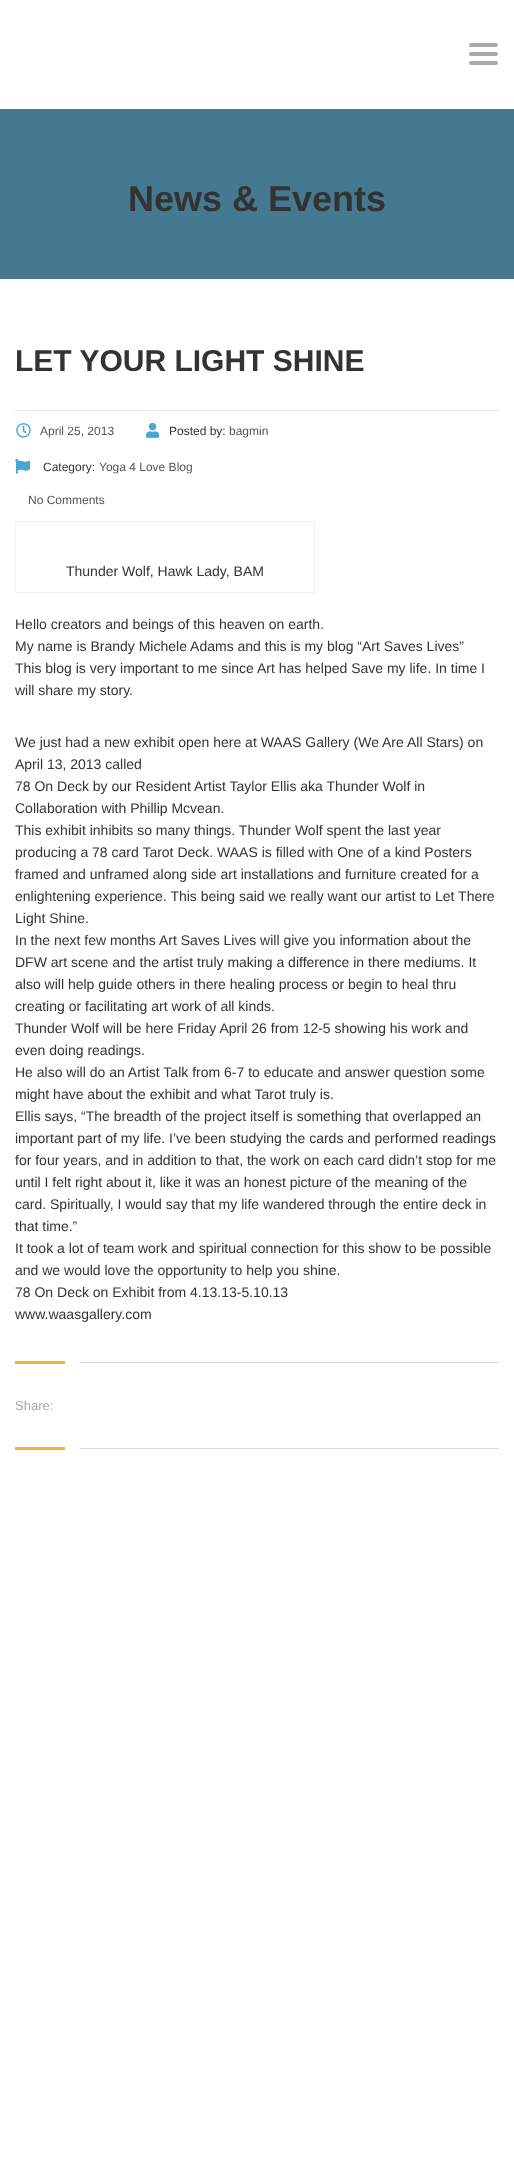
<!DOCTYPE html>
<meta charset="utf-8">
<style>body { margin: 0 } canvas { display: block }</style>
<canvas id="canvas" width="514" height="2180"></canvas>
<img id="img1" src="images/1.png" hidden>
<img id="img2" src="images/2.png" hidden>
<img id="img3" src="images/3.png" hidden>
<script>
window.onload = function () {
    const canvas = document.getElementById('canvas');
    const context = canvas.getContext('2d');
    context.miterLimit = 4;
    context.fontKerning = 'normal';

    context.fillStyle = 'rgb(255, 255, 255)';
    context.fillRect(0, 0, 514, 2180);
    context.fillStyle = 'rgb(170, 170, 170)';
    context.beginPath();
    context.roundRect(469, 43, 29, 4, 2);
    context.fill();
    context.beginPath();
    context.roundRect(469, 52, 29, 4, 2);
    context.fill();
    context.beginPath();
    context.roundRect(469, 61, 29, 4, 2);
    context.fill();
    context.fillStyle = 'rgb(69, 121, 146)';
    context.fillRect(0, 109, 514, 170);
    context.fillStyle = 'rgb(225, 226, 228)';
    context.fillRect(15, 410, 484, 1);
    context.drawImage(document.getElementById('img1'), 16, 423, 15, 15);
    context.drawImage(document.getElementById('img2'), 146, 422, 14, 16);
    context.drawImage(document.getElementById('img3'), 15, 458, 15, 16);
    context.strokeStyle = 'rgb(240, 240, 240)';
    context.strokeRect(15.5, 521.5, 299, 71);
    context.fillStyle = 'rgb(234, 184, 48)';
    context.fillRect(15, 1361, 50, 3);
    context.fillStyle = 'rgb(220, 220, 220)';
    context.fillRect(80, 1362, 419, 1);
    context.fillStyle = 'rgb(234, 184, 48)';
    context.fillRect(15, 1447, 50, 3);
    context.fillStyle = 'rgb(220, 220, 220)';
    context.fillRect(80, 1448, 419, 1);
    context.font = 'bold 36px Liberation Sans';
    context.fillStyle = 'rgb(51, 51, 51)';
    context.fillText('News & Events', 128, 211);
    context.font = 'bold 30px Liberation Sans';
    context.fillText('LET YOUR LIGHT SHINE', 15, 371);
    context.font = '12px Liberation Sans';
    context.fillStyle = 'rgb(85, 85, 85)';
    context.fillText('April 25, 2013', 40, 435);
    context.fillStyle = 'rgb(51, 51, 51)';
    context.fillText('Posted by:', 169, 435);
    context.fillStyle = 'rgb(85, 85, 85)';
    context.fillText('bagmin', 229, 435);
    context.fillStyle = 'rgb(51, 51, 51)';
    context.fillText('Category:', 43, 471);
    context.fillStyle = 'rgb(85, 85, 85)';
    context.fillText('Yoga 4 Love Blog', 99, 471);
    context.fillText('No Comments', 28, 504);
    context.font = '14px Liberation Sans';
    context.fillStyle = 'rgb(51, 51, 51)';
    context.fillText('Thunder Wolf, Hawk Lady, BAM', 66, 576);
    context.fillText('Hello creators and beings of this heaven on earth.', 15, 629);
    context.fillText('My name is Brandy Michele Adams and this is my blog “Art Saves Lives”', 15, 651);
    context.fillText('This blog is very important to me since Art has helped Save my life. In time I', 15, 673);
    context.fillText('will share my story.', 15, 695);
    context.fillText('We just had a new exhibit open here at WAAS Gallery (We Are All Stars) on', 15, 747);
    context.fillText('April 13, 2013 called', 15, 769);
    context.fillText('78 On Deck by our Resident Artist Taylor Ellis aka Thunder Wolf in', 15, 791);
    context.fillText('Collaboration with Phillip Mcvean.', 15, 813);
    context.fillText('This exhibit inhibits so many things. Thunder Wolf spent the last year', 15, 835);
    context.fillText('producing a 78 card Tarot Deck. WAAS is filled with One of a kind Posters', 15, 857);
    context.fillText('framed and unframed along side art installations and furniture created for a', 15, 879);
    context.fillText('enlightening experience. This being said we really want our artist to Let There', 15, 901);
    context.fillText('Light Shine.', 15, 923);
    context.fillText('In the next few months Art Saves Lives will give you information about the', 15, 945);
    context.fillText('DFW art scene and the artist truly making a difference in there mediums. It', 15, 967);
    context.fillText('also will help guide others in there healing process or begin to heal thru', 15, 989);
    context.fillText('creating or facilitating art work of all kinds.', 15, 1011);
    context.fillText('Thunder Wolf will be here Friday April 26 from 12-5 showing his work and', 15, 1033);
    context.fillText('even doing readings.', 15, 1055);
    context.fillText('He also will do an Artist Talk from 6-7 to educate and answer question some', 15, 1077);
    context.fillText('might have about the exhibit and what Tarot truly is.', 15, 1099);
    context.fillText('Ellis says, “The breadth of the project itself is something that overlapped an', 15, 1121);
    context.fillText('important part of my life. I’ve been studying the cards and performed readings', 15, 1143);
    context.fillText('for four years, and in addition to that, the work on each card didn’t stop for me', 15, 1165);
    context.fillText('until I felt right about it, like it was an honest picture of the meaning of the', 15, 1187);
    context.fillText('card. Spiritually, I would say that my life wandered through the entire deck in', 15, 1209);
    context.fillText('that time.”', 15, 1231);
    context.fillText('It took a lot of team work and spiritual connection for this show to be possible', 15, 1253);
    context.fillText('and we would love the opportunity to help you shine.', 15, 1275);
    context.fillText('78 On Deck on Exhibit from 4.13.13-5.10.13', 15, 1297);
    context.fillText('www.waasgallery.com', 15, 1319);
    context.font = '13px Liberation Sans';
    context.fillStyle = 'rgb(170, 170, 170)';
    context.fillText('Share:', 15, 1410);
};
</script>
